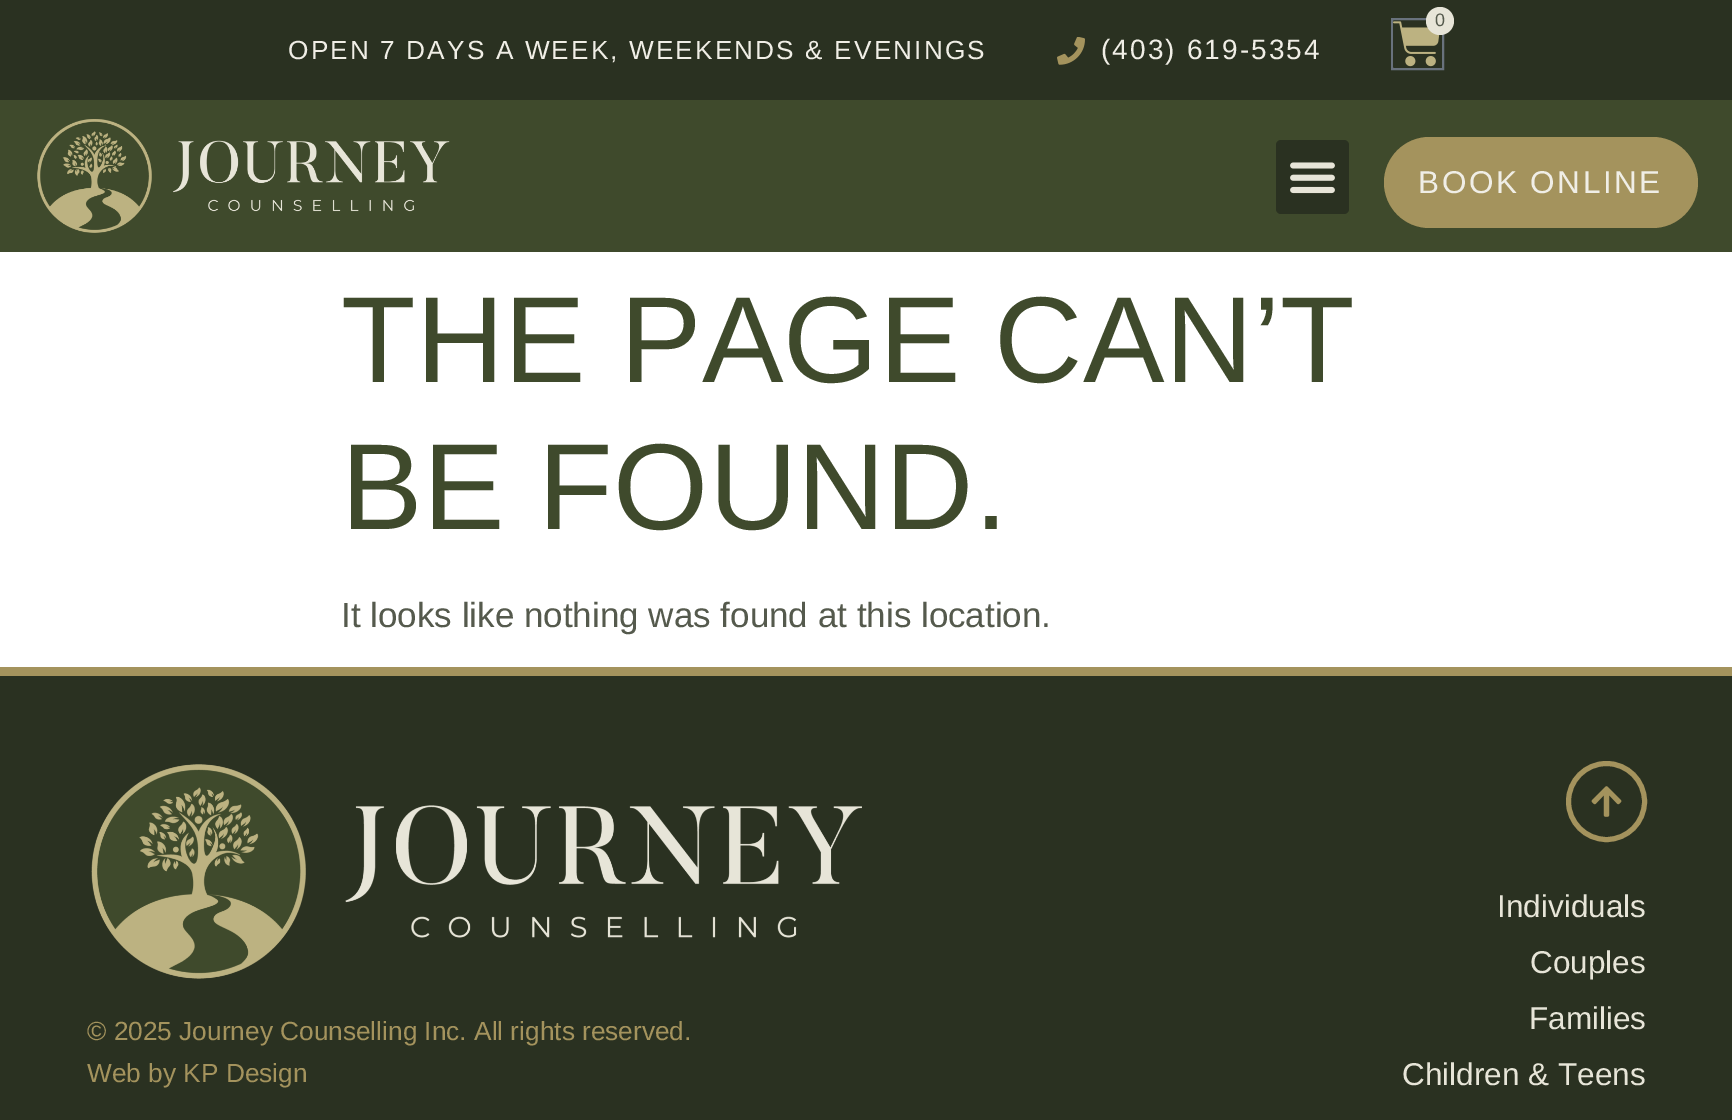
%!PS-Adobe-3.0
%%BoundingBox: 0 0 1732 1120
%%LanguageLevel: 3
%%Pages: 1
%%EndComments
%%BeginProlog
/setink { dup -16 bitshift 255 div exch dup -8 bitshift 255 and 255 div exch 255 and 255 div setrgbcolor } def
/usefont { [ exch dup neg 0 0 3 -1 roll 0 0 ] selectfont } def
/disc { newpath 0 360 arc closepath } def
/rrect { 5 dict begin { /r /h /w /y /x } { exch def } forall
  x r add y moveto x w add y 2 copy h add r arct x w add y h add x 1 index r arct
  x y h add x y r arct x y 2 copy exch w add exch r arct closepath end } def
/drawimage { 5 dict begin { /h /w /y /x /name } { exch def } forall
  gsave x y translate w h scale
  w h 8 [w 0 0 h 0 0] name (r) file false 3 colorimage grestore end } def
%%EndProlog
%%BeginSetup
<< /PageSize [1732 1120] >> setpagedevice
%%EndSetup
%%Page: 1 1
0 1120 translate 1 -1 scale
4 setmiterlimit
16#FFFFFF setink
0 0 1732 1120 rectfill
16#2A3121 setink
0 0 1732 100 rectfill
16#69727D setink
2 setlinewidth
1392 19 51 50 rectstroke
(img1.raw) 1393 21 47 46 drawimage
16#E7E5D8 setink
1440 21 14 disc fill
/LiberationSans-Regular 18 usefont
16#555A4D setink
1435 26 moveto 2.5 0 (0) ashow
/LiberationSans-Regular 26.25 usefont
16#F0EEE6 setink
288 59 moveto 2.1 0 (OPEN 7 DAYS A WEEK, WEEKENDS & EVENINGS) ashow
(img2.raw) 1057 37 28 28 drawimage
/LiberationSans-Regular 28 usefont
1101 59 moveto 2.1 0 (\(403\) 619-5354) ashow
16#3F4A2C setink
0 100 1732 152 rectfill
(img3.raw) 37 119 413 114 drawimage
16#2A3121 setink
1276 140 73 74 5 rrect fill
(img4.raw) 1290 162 45 32 drawimage
16#A4935D setink
1384 137 314 91 45.5 rrect fill
/LiberationSans-Regular 31.5 usefont
16#F0EEE6 setink
1418 193 moveto 2.5 0 (BOOK ONLINE) ashow
/LiberationSans-Regular 122.5 usefont
16#3F4A2C setink
341 382 moveto (THE PAGE CAN’T) show
341 529 moveto (BE FOUND.) show
/LiberationSans-Regular 35 usefont
16#555A4D setink
341 627 moveto (It looks like nothing was found at this location.) show
16#2A3121 setink
0 676 1732 444 rectfill
16#A4935D setink
0 667 1732 9 rectfill
(img5.raw) 91 764 771 215 drawimage
/LiberationSans-Regular 26.25 usefont
87 1040 moveto (© 2025 Journey Counselling Inc. All rights reserved.) show
87 1082 moveto (Web by KP Design) show
5 setlinewidth
1606.5 801.5 38 disc stroke
(img6.raw) 1591 786 31 31 drawimage
/LiberationSans-Regular 31.5 usefont
16#E7E5D8 setink
[
    [(Individuals) 1497 917]
    [(Couples) 1530 973]
    [(Families) 1529 1029]
    [(Children & Teens) 1402 1085]
] { aload pop moveto show } forall
showpage
%%EOF
